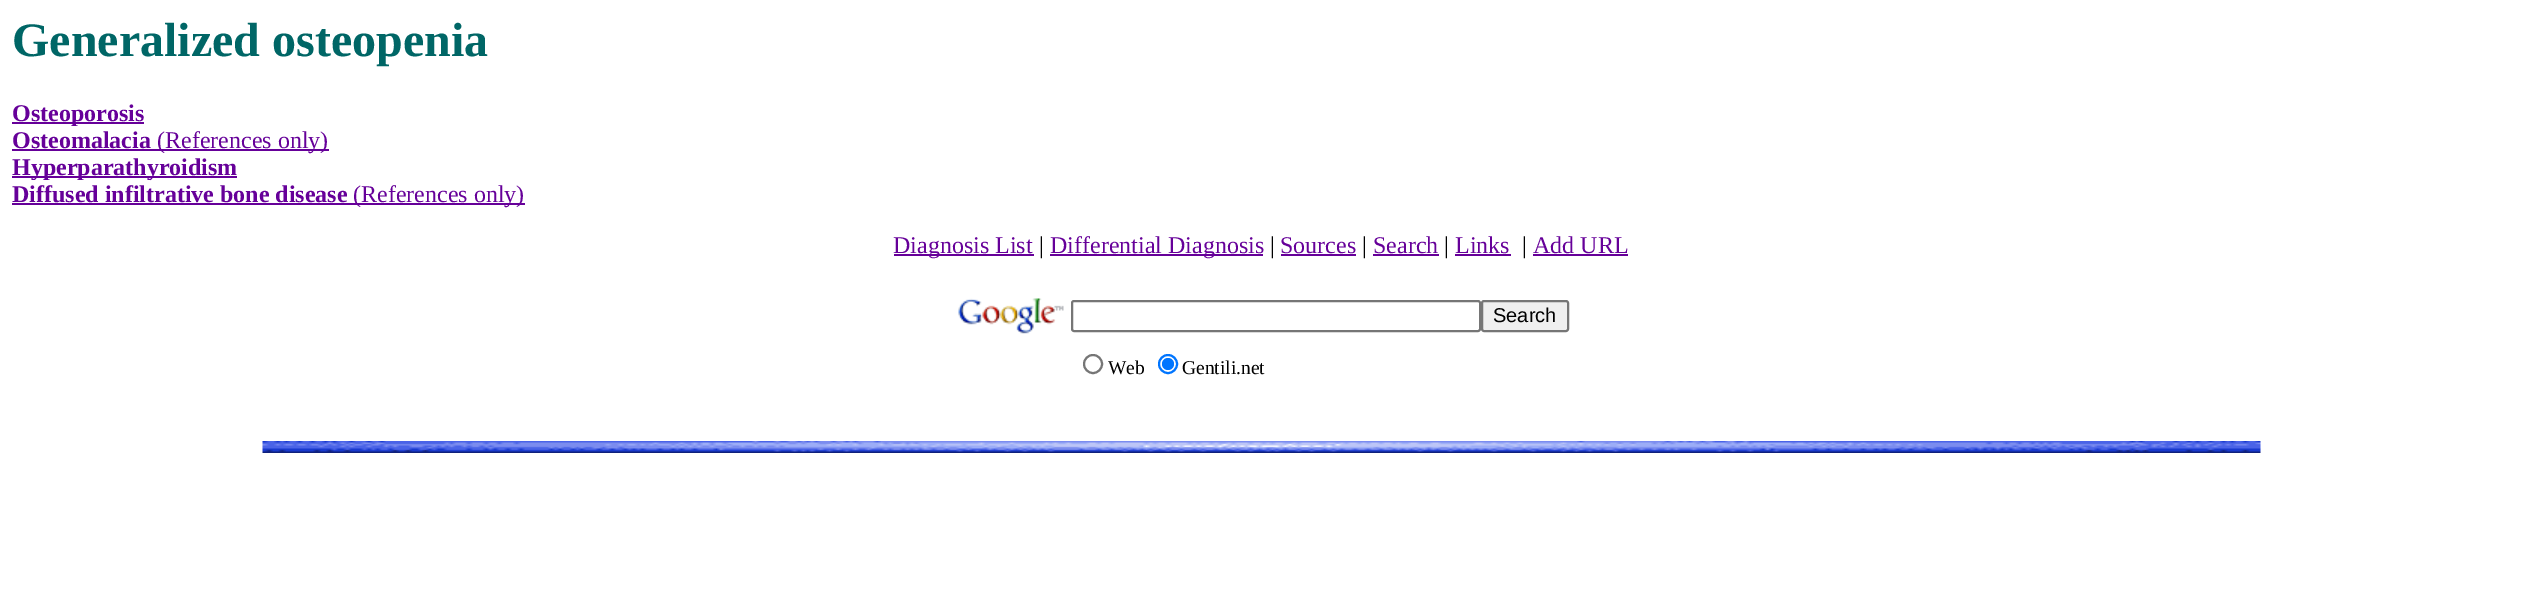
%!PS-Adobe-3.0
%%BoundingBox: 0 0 2521 615
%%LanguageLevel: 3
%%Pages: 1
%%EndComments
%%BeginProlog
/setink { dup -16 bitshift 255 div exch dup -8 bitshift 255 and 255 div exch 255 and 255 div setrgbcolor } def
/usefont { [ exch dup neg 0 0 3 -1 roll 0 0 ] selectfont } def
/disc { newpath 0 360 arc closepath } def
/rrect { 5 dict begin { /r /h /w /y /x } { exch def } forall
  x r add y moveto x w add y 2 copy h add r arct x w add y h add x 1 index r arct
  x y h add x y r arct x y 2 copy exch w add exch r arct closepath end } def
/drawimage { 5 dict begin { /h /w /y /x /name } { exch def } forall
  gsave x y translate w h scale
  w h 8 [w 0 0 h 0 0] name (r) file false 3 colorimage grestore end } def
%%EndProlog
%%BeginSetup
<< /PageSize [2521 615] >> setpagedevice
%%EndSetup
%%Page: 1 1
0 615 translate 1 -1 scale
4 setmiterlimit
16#FFFFFF setink
0 0 2521 615 rectfill
/LiberationSerif-Bold 48 usefont
16#006666 setink
12 56 moveto (Generalized osteopenia) show
16#660099 setink
12 122 132 2 rectfill
/LiberationSerif-Bold 24 usefont
12 121 moveto (Osteoporosis) show
12 148 moveto (Osteomalacia) show
16#FFFFFF setink
71 126 7 1 rectfill
16#660099 setink
12 149 317 2 rectfill
/LiberationSerif-Regular 24 usefont
157 148 moveto (\(References only\)) show
12 176 225 2 rectfill
/LiberationSerif-Bold 24 usefont
12 175 moveto (Hyperparathyroidism) show
12 202 moveto (Diffused infiltrative bone disease) show
16#FFFFFF setink
32 180 118 1 rectfill
16#660099 setink
12 203 513 2 rectfill
/LiberationSerif-Regular 24 usefont
353 202 moveto (\(References only\)) show
894 254 140 2 rectfill
893 253 moveto (Diagnosis List) show
16#000000 setink
1039 253 moveto (|) show
16#660099 setink
1050 254 213 2 rectfill
1050 253 moveto (Differential Diagnosis) show
16#000000 setink
1270 253 moveto (|) show
16#660099 setink
1280 253 moveto (Sources) show
1281 254 75 2 rectfill
16#000000 setink
1362 253 moveto (|) show
16#660099 setink
1373 253 moveto (Search) show
1373 254 66 2 rectfill
16#000000 setink
1444 253 moveto (|) show
16#660099 setink
1455 253 moveto (Links) show
1455 254 56 2 rectfill
16#000000 setink
1522 253 moveto (|) show
16#660099 setink
1533 253 moveto (Add URL) show
1533 254 95 2 rectfill
(img1.raw) 958 298 106 36 drawimage
16#767676 setink
2 setlinewidth
1072 301 408 30 2 rrect stroke
16#EFEFEF setink
1482 301 86 30 2 rrect gsave fill grestore
16#767676 setink
stroke
/LiberationSans-Regular 20 usefont
16#000000 setink
1493 322 moveto (Search) show
16#767676 setink
1093 364 9 disc stroke
/LiberationSerif-Regular 19.5 usefont
16#000000 setink
1108 374 moveto (Web) show
16#0075FF setink
1168 364 9 disc stroke
1168 364 6 disc fill
16#000000 setink
1182 374 moveto (Gentili.net) show
(img2.raw) 262 441 1999 12 drawimage
showpage
%%EOF
